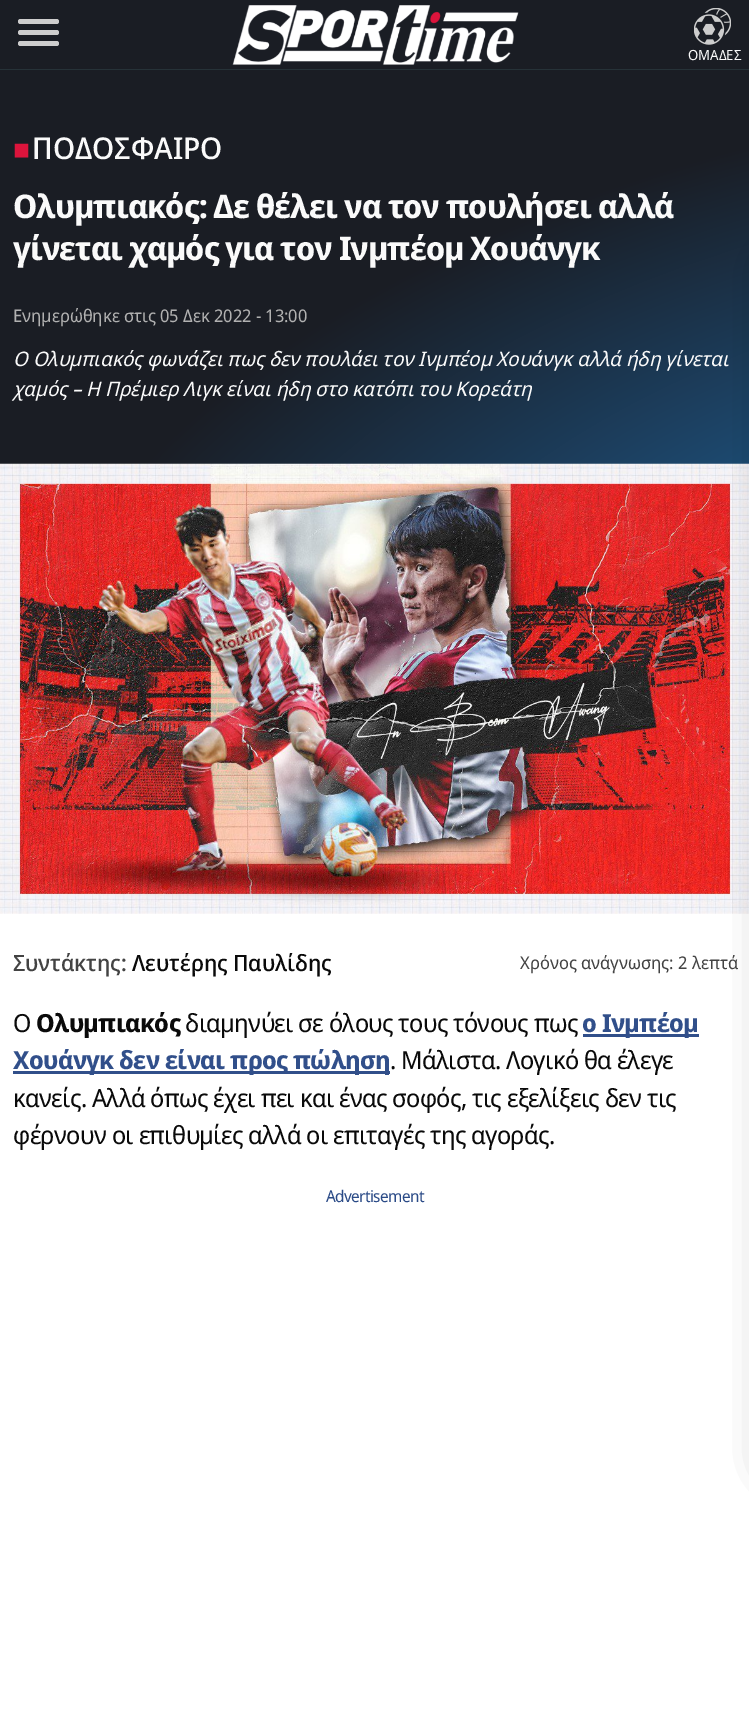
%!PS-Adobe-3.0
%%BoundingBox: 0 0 749 1728
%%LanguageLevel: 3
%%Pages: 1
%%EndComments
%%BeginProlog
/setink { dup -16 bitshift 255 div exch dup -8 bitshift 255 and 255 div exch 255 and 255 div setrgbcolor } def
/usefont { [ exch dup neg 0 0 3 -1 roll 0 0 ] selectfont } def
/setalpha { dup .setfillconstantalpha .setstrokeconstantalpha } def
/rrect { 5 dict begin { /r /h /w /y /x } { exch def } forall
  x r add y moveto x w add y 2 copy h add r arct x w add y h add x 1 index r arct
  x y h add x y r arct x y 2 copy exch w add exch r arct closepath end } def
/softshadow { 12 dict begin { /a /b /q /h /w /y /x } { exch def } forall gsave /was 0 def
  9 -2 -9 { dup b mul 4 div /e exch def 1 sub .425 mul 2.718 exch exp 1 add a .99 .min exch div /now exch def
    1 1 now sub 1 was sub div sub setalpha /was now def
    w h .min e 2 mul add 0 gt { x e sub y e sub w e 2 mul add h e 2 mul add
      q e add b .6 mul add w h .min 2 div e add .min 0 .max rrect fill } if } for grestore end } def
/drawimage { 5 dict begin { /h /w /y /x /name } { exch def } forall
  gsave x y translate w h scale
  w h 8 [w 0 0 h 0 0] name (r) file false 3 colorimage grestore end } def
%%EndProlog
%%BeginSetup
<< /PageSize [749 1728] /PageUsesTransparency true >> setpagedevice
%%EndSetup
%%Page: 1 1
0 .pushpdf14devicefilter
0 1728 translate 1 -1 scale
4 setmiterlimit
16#FFFFFF setink
0 0 749 1728 rectfill
16#1A1D24 setink
0 0 749 69 rectfill
16#263238 setink
0 69 749 1 rectfill
16#CDCDCD setink
18 19 41 5 2.5 rrect fill
18 30 41 5 2.5 rrect fill
18 41 41 5 2.5 rrect fill
(img1.raw) 232 5 287 60 drawimage
(img2.raw) 694 8 37 37 drawimage
/NotoSansDisplay-Regular 14 usefont
16#FAFAFA setink
688 60 moveto (ΟΜΑΔΕΣ) show
gsave 0 70 moveto 749 70 lineto 749 464 lineto 0 464 lineto closepath clip newpath 1350 779 translate 1350 709 scale
<< /ShadingType 3 /ColorSpace /DeviceRGB /Coords [0 0 0 0 0 1] /Extend [true true] /Function << /FunctionType 2 /Domain [0 1] /C0 [0.129 0.588 0.953] /C1 [0.102 0.114 0.141] /N 1 >> >> shfill grestore
(img3.raw) 0 463 749 451 drawimage
16#000000 setink
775 259 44 1211 22 19 0.6 softshadow
/LiberationSans-Regular 28 usefont
16#DC143C setink
13 159 moveto (■) show
/NotoSansDisplay-Medium 30 usefont
16#FAFAFA setink
32 159 moveto (ΠΟΔΟΣΦΑΙΡΟ) show
/NotoSansDisplay-Bold 32.5 usefont
13 218 moveto -0.95 0 (Ολυμπιακός: Δε θέλει να τον πουλήσει αλλά) ashow
13 260 moveto -0.95 0 (γίνεται χαμός για τον Ινμπέομ Χουάνγκ) ashow
/NotoSansDisplay-Regular 17.5 usefont
16#B1B1B1 setink
13 322 moveto (Ενημερώθηκε στις 05 Δεκ 2022 - 13:00) show
/NotoSansDisplay-Italic 20 usefont
16#FAFAFA setink
13 366 moveto (Ο Ολυμπιακός φωνάζει πως δεν πουλάει τον Ινμπέομ Χουάνγκ αλλά ήδη γίνεται) show
13 396 moveto (χαμός – Η Πρέμιερ Λιγκ είναι ήδη στο κατόπι του Κορεάτη) show
/NotoSansDisplay-Medium 22.5 usefont
16#434343 setink
13 971 moveto (Συντάκτης:) show
16#0A0A0A setink
132 971 moveto (Λευτέρης Παυλίδης) show
/NotoSansDisplay-Regular 17.5 usefont
16#434343 setink
520 969 moveto (Χρόνος ανάγνωσης: 2 λεπτά) show
/NotoSansDisplay-Regular 25 usefont
16#0A0A0A setink
13 1032 moveto -0.6 0 (Ο) ashow
/NotoSansDisplay-Bold 25 usefont
36 1032 moveto -0.6 0 (Ολυμπιακός) ashow
/NotoSansDisplay-Regular 25 usefont
185 1032 moveto -0.6 0 (διαμηνύει σε όλους τους τόνους πως) ashow
16#314F8A setink
583 1034 116 3 rectfill
/NotoSansDisplay-Bold 25 usefont
582 1032 moveto -0.6 0 (ο Ινμπέομ) ashow
13 1071 377 3 rectfill
13 1069 moveto -0.6 0 (Χουάνγκ δεν είναι προς πώληση) ashow
/NotoSansDisplay-Regular 25 usefont
16#0A0A0A setink
390 1069 moveto -0.6 0 (. Μάλιστα. Λογικό θα έλεγε) ashow
13 1107 moveto -0.6 0 (κανείς. Αλλά όπως έχει πει και ένας σοφός, τις εξελίξεις δεν τις) ashow
13 1144 moveto -0.6 0 (φέρνουν οι επιθυμίες αλλά οι επιταγές της αγοράς.) ashow
/NotoSansDisplay-Regular 16.25 usefont
16#2B4B87 setink
326 1202 moveto -0.6 0 (Advertisement) ashow
.poppdf14devicefilter showpage
%%EOF
